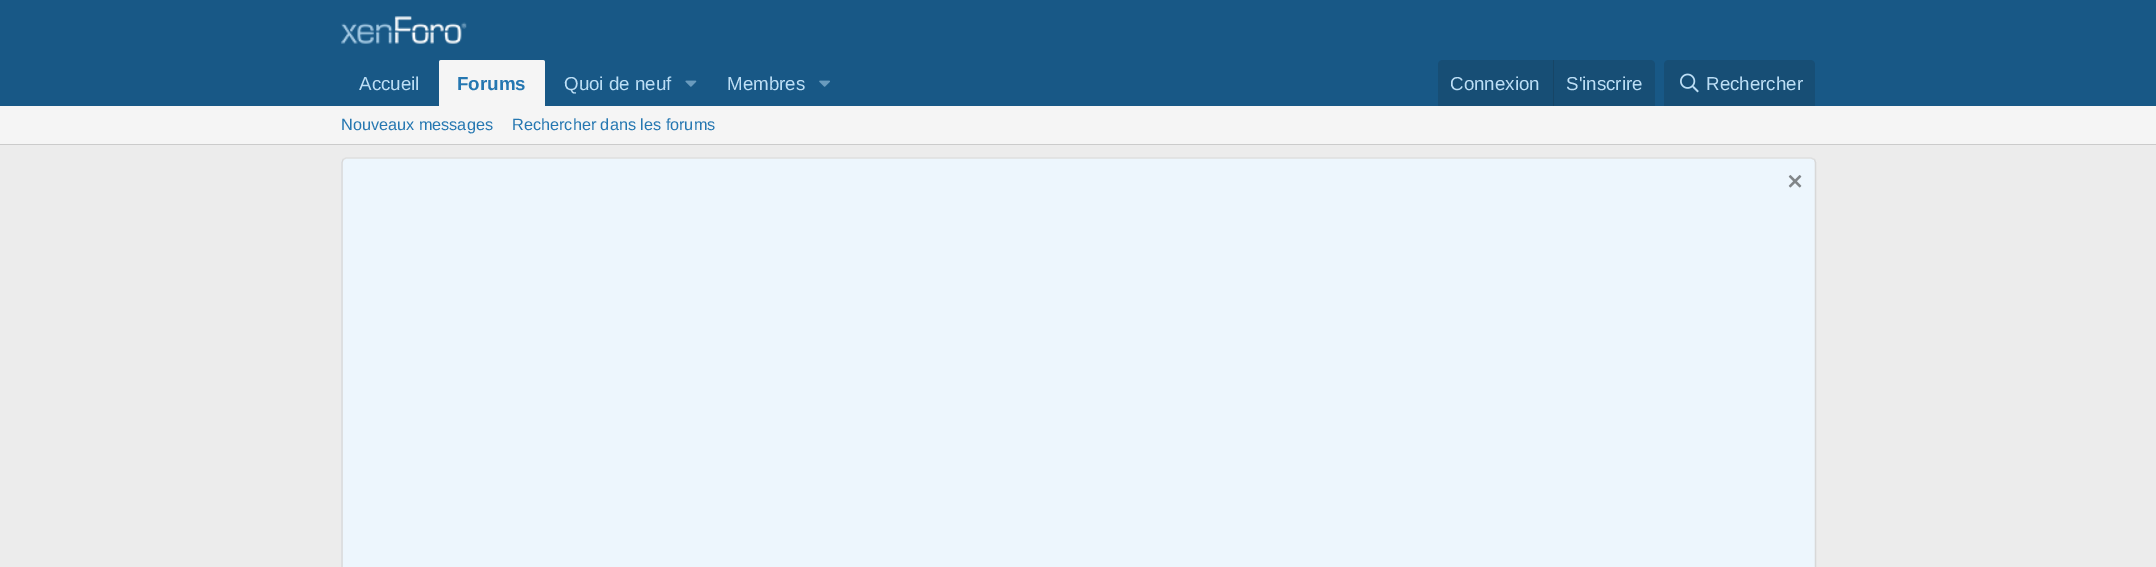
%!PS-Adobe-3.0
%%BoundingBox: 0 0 2156 567
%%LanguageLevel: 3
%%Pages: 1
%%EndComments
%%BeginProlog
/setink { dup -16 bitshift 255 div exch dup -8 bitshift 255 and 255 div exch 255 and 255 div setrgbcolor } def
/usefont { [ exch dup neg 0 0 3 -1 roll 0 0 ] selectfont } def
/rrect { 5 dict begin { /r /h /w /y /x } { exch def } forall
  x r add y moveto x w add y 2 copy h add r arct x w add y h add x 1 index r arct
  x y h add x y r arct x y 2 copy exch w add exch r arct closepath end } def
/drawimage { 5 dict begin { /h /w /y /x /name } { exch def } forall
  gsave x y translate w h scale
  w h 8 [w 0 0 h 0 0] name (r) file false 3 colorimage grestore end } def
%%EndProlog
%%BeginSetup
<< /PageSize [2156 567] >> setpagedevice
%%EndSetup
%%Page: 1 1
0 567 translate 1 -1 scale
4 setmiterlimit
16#ECECEC setink
0 0 2156 567 rectfill
16#185886 setink
0 0 2156 106 rectfill
(img1.raw) 341 16 126 28 drawimage
/LiberationSans-Regular 18.75 usefont
16#BCDEF5 setink
359 90 moveto (Accueil) show
16#F5F5F5 setink
441.5 60 moveto 542.5 60 lineto 544 60 545 61 545 62.5 curveto 545 106 lineto 439 106 lineto 439 62.5 lineto 439 61 440 60 441.5 60 curveto closepath fill
/LiberationSans-Bold 18.75 usefont
16#2577B1 setink
457 90 moveto (Forums) show
/LiberationSans-Regular 18.75 usefont
16#BCDEF5 setink
564 90 moveto (Quoi de neuf) show
(img2.raw) 685 80 12 7 drawimage
727 90 moveto (Membres) show
(img3.raw) 819 80 11 7 drawimage
16#174E75 setink
1443 60 moveto 1650 60 lineto 1653 60 1655 62 1655 65 curveto 1655 106 lineto 1438 106 lineto 1438 65 lineto 1438 62 1440 60 1443 60 curveto closepath fill
16#BCDEF5 setink
1450 90 moveto (Connexion) show
16#174566 setink
1553 60 1 46 rectfill
16#BCDEF5 setink
1566 90 moveto (S'inscrire) show
16#174E75 setink
1669 60 moveto 1810 60 lineto 1813 60 1815 62 1815 65 curveto 1815 106 lineto 1664 106 lineto 1664 65 lineto 1664 62 1666 60 1669 60 curveto closepath fill
(img4.raw) 1680 73 19 20 drawimage
16#BCDEF5 setink
1706 90 moveto (Rechercher) show
16#F5F5F5 setink
0 106 2156 38 rectfill
16#CBCBCB setink
0 144 2156 1 rectfill
/LiberationSans-Regular 16.25 usefont
16#2577B1 setink
341 130 moveto (Nouveaux messages) show
512 130 moveto (Rechercher dans les forums) show
16#EDF6FD setink
341 158 1475 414 5 rrect fill
16#DFDFDF setink
1.2 setlinewidth
343 159.5 moveto 346 158 lineto 1811 158 lineto 1814.5 159.5 lineto stroke
16#D8D8D8 setink
1814.5 159.5 moveto 1815.5 162.5 lineto 1815.5 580 lineto 1814.5 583 lineto stroke
343 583 moveto 342 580 lineto 342 162.5 lineto 343 159.5 lineto stroke
(img5.raw) 1788 175 14 13 drawimage
showpage
%%EOF
